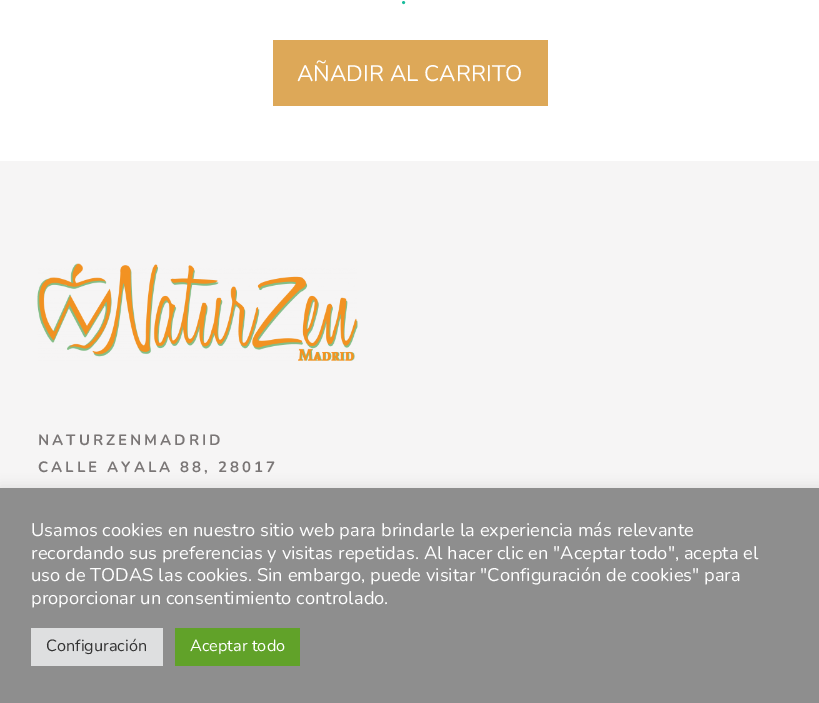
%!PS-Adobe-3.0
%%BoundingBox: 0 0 819 703
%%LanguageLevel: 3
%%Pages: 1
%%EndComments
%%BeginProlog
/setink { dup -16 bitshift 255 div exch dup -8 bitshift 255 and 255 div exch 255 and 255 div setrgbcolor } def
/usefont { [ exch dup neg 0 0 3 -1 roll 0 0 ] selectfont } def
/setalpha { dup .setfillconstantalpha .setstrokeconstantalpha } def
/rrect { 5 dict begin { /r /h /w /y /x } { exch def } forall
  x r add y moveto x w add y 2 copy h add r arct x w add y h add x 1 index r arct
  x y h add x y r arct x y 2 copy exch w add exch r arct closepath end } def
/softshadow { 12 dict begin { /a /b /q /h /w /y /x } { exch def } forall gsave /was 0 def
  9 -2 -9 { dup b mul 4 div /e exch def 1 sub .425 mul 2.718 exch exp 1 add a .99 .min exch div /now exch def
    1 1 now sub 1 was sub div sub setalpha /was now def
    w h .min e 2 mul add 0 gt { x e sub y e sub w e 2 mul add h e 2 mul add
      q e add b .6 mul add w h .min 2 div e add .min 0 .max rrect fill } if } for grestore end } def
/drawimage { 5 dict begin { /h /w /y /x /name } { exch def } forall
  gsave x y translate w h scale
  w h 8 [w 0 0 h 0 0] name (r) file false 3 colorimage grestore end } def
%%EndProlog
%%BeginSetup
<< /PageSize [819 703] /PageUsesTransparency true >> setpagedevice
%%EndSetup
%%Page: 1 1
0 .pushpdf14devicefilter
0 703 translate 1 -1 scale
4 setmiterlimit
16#FFFFFF setink
0 0 819 703 rectfill
/Nunito-Bold 21 usefont
16#1ABC9C setink
401 4 moveto (.) show
16#DDA858 setink
273 40 275 66 rectfill
/Nunito-Regular 22.5 usefont
16#FFFFFF setink
297 81 moveto (AÑADIR AL CARRITO) show
16#F6F5F5 setink
0 161 819 327 rectfill
(img1.raw) 37 263 321 98 drawimage
/Nunito-Bold 15 usefont
16#7A7676 setink
38 445 moveto 3 0 (NATURZENMADRID) ashow
38 472 moveto 3 0 (CALLE AYALA 88, 28017) ashow
16#ACABAB setink
0 486 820 217 0 6 0.3 softshadow
16#8E8E8E setink
0 488 819 215 rectfill
/Nunito-Regular 18.35 usefont
16#FFFFFF setink
[
    [(Usamos cookies en nuestro sitio web para brindarle la experiencia más relevante) 31 536]
    [(recordando sus preferencias y visitas repetidas. Al hacer clic en "Aceptar todo", acepta el) 31 559]
    [(uso de TODAS las cookies. Sin embargo, puede visitar "Configuración de cookies" para) 31 581]
    [(proporcionar un consentimiento controlado.) 31 604]
] { aload pop moveto show } forall
16#DEDFE0 setink
31 628 132 38 rectfill
/Nunito-Regular 16.25 usefont
16#333333 setink
46 651 moveto (Configuración) show
16#61A229 setink
175 628 125 38 rectfill
16#FFFFFF setink
190 651 moveto (Aceptar todo) show
.poppdf14devicefilter showpage
%%EOF
